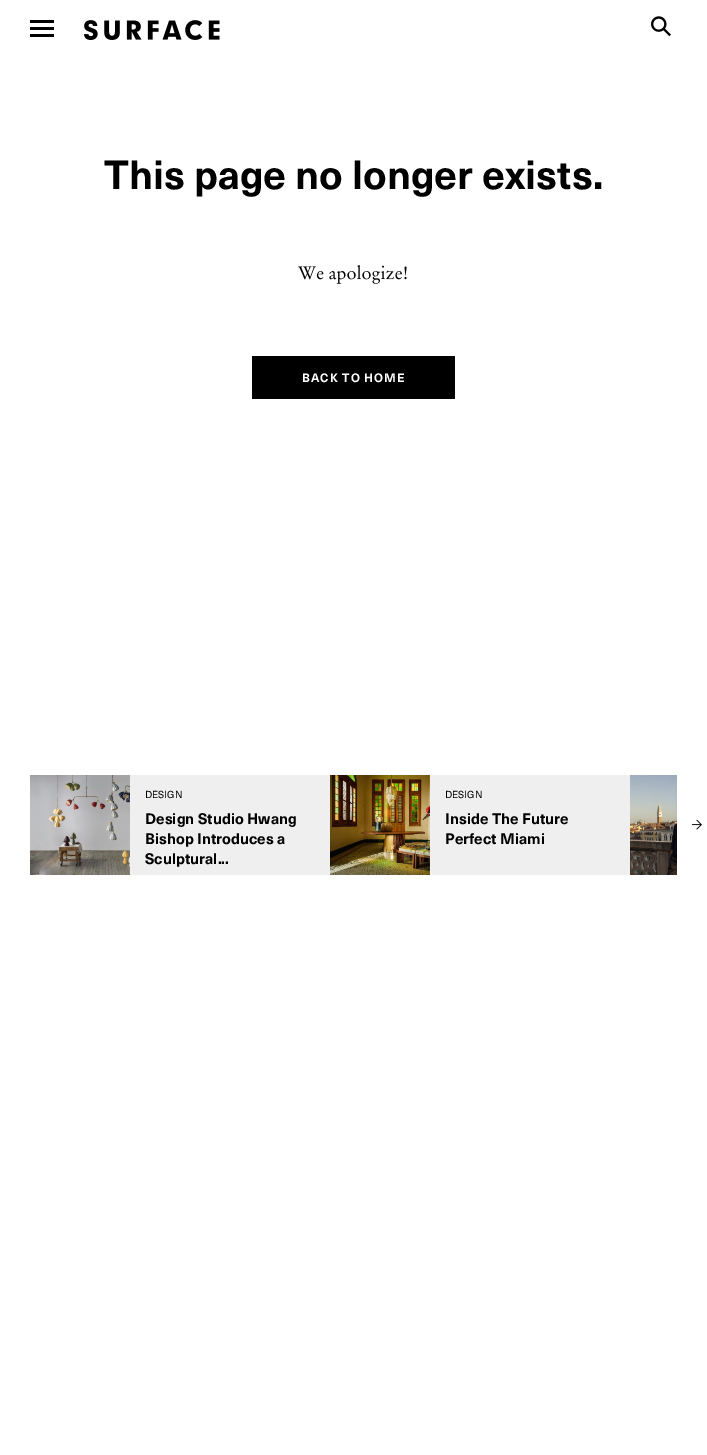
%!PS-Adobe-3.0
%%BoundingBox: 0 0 707 1455
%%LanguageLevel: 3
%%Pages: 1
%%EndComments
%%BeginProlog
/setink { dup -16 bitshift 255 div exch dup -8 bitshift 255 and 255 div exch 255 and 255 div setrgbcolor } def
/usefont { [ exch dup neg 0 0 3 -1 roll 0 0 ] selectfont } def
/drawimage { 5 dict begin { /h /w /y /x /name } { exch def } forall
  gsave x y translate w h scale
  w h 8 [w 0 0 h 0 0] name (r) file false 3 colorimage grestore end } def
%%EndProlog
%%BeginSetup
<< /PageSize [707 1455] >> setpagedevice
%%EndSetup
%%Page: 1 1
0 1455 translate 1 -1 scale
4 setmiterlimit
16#FFFFFF setink
0 0 707 1455 rectfill
[
    [30 20 24 3 16#000000]
    [30 27 24 3 16#000000]
    [30 34 24 3 16#000000]
] { aload pop setink rectfill } forall
(img1.raw) 84 20 136 20 drawimage
(img2.raw) 651 16 20 21 drawimage
/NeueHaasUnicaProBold-Regular 40 usefont
104 189 moveto (This page no longer exists.) show
(img3.raw) 298 265 109 19 drawimage
252 356 203 43 rectfill
/NeueHaasUnicaProBold-Regular 12 usefont
16#FFFFFF setink
302 382 moveto 1 0 (BACK TO HOME) ashow
16#EFEFEF setink
130 775 200 100 rectfill
(img4.raw) 30 775 100 100 drawimage
/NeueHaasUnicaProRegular-Regular 10 usefont
16#000000 setink
145 798 moveto (DESIGN) show
/NeueHaasUnicaProBold-Regular 15 usefont
[
    [(Design Studio Hwang) 145 824]
    [(Bishop Introduces a) 145 844]
    [(Sculptural...) 145 864]
] { aload pop moveto show } forall
16#EFEFEF setink
430 775 200 100 rectfill
(img5.raw) 330 775 100 100 drawimage
/NeueHaasUnicaProRegular-Regular 10 usefont
16#000000 setink
445 798 moveto (DESIGN) show
/NeueHaasUnicaProBold-Regular 15 usefont
445 824 moveto (Inside The Future) show
445 844 moveto (Perfect Miami) show
(img6.raw) 630 775 47 100 drawimage
(img7.raw) 692 819 10 11 drawimage
showpage
%%EOF
